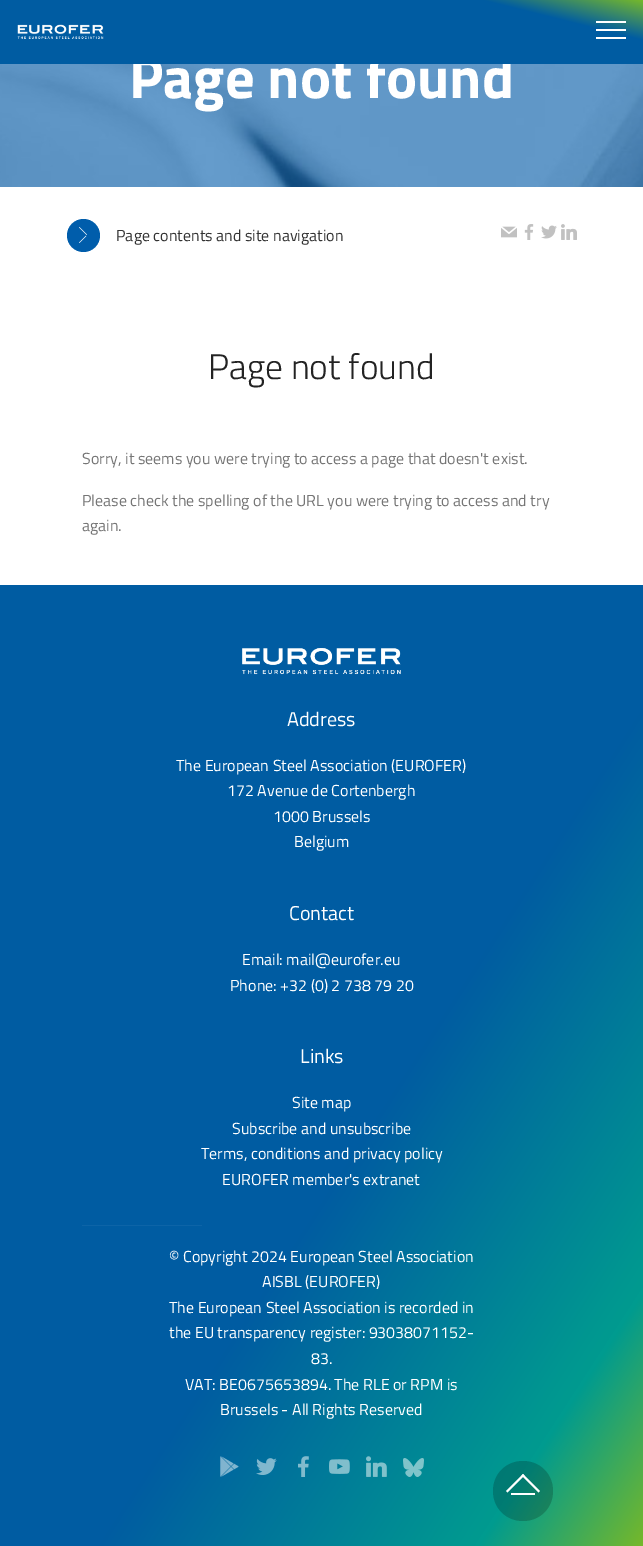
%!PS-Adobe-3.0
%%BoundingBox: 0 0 643 1546
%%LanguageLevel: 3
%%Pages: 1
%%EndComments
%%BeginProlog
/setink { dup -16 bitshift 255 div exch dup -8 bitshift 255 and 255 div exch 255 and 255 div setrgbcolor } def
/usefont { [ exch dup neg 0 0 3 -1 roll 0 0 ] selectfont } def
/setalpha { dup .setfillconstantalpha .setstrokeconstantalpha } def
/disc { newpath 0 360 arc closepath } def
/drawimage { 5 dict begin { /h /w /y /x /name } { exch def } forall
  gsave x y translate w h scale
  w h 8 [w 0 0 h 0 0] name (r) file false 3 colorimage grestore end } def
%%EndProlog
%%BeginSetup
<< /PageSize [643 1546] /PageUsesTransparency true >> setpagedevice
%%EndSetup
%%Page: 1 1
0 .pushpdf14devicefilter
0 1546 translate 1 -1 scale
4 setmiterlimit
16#FFFFFF setink
0 0 643 1546 rectfill
(img2.raw) 0 64 643 123 drawimage
/TitilliumWeb-Bold 58.5 usefont
129 98 moveto (Page not found) show
gsave 0 0 moveto 643 0 lineto 643 64 lineto 0 64 lineto closepath clip newpath
<< /ShadingType 2 /ColorSpace /DeviceRGB /Coords [295 138 348 -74] /Extend [true true] /Function << /FunctionType 3 /Domain [0 1] /Functions [<< /FunctionType 2 /Domain [0 1] /C0 [0 0.361 0.635] /C1 [0 0.361 0.635] /N 1 >> << /FunctionType 2 /Domain [0 1] /C0 [0 0.361 0.635] /C1 [0.463 0.722 0.165] /N 1 >>] /Bounds [0.82] /Encode [0 1 0 1] >> >> shfill grestore
(img1.raw) 17 24 87 15 drawimage
[
    [596 21 30 2 16#FFFFFF]
    [596 29 30 2 16#FFFFFF]
    [596 37 30 2 16#FFFFFF]
] { aload pop setink rectfill } forall
16#005DAB setink
83.5 235.5 16.5 disc fill
(img3.raw) 79 227 8 16 drawimage
/TitilliumWeb-Regular 16 usefont
16#333333 setink
116 241 moveto (Page contents and site navigation) show
(img4.raw) 501 226 16 12 drawimage
(img5.raw) 524 224 10 16 drawimage
(img6.raw) 541 225 16 14 drawimage
(img7.raw) 561 224 16 16 drawimage
/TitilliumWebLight-Light 35.5 usefont
16#232323 setink
208 379 moveto (Page not found) show
/TitilliumWeb-Regular 16 usefont
16#767676 setink
[
    [(Sorry, it seems you were trying to access a page that doesn't exist.) 82 464]
    [(Please check the spelling of the URL you were trying to access and try) 82 506]
    [(again.) 82 531]
] { aload pop moveto show } forall
gsave 0 585 moveto 643 585 lineto 643 1546 lineto 0 1546 lineto closepath clip newpath
<< /ShadingType 2 /ColorSpace /DeviceRGB /Coords [-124 776 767 1355] /Extend [true true] /Function << /FunctionType 3 /Domain [0 1] /Functions [<< /FunctionType 2 /Domain [0 1] /C0 [0 0.361 0.635] /C1 [0 0.361 0.635] /N 1 >> << /FunctionType 2 /Domain [0 1] /C0 [0 0.361 0.635] /C1 [0 0.608 0.561] /N 1 >> << /FunctionType 2 /Domain [0 1] /C0 [0 0.608 0.561] /C1 [0.463 0.722 0.165] /N 1 >>] /Bounds [0.57 0.87] /Encode [0 1 0 1 0 1] >> >> shfill grestore
(img8.raw) 242 648 159 27 drawimage
/TitilliumWeb-Regular 20 usefont
16#FFFFFF setink
287 726 moveto (Address) show
/TitilliumWeb-Regular 16 usefont
[
    [(The European Steel Association \(EUROFER\)) 176 771]
    [(172 Avenue de Cortenbergh) 227 796]
    [(1000 Brussels) 273 822]
    [(Belgium) 294 847]
] { aload pop moveto show } forall
/TitilliumWeb-Regular 20 usefont
289 920 moveto (Contact) show
/TitilliumWeb-Regular 16 usefont
242 965 moveto (Email: mail@eurofer.eu) show
230 991 moveto (Phone: +32 \(0\) 2 738 79 20) show
/TitilliumWeb-Regular 20 usefont
300 1063 moveto (Links) show
/TitilliumWeb-Regular 16 usefont
[
    [(Site map) 292 1108]
    [(Subscribe and unsubscribe) 232 1134]
    [(Terms, conditions and privacy policy) 201 1159]
    [(EUROFER member's extranet) 222 1185]
] { aload pop moveto show } forall
16#0D64A7 setink
82 1225 120 1 rectfill
16#FFFFFF setink
[
    [(© Copyright 2024 European Steel Association) 169 1262]
    [(AISBL \(EUROFER\)) 262 1287]
    [(The European Steel Association is recorded in) 169 1313]
    [(the EU transparency register: 93038071152-) 169 1338]
    [(83.) 311 1364]
    [(VAT: BE0675653894. The RLE or RPM is) 185 1390]
    [(Brussels - All Rights Reserved) 220 1415]
] { aload pop moveto show } forall
(img9.raw) 220 1456 19 21 drawimage
(img10.raw) 256 1458 21 17 drawimage
(img11.raw) 298 1456 11 21 drawimage
(img12.raw) 329 1459 21 15 drawimage
(img13.raw) 366 1456 21 21 drawimage
(img14.raw) 403 1458 21 19 drawimage
0.2 setalpha
16#000000 setink
523 1521 moveto 506 1521 493 1508 493 1491 curveto 493 1474 506 1461 523 1461 curveto 540 1461 553 1474 553 1491 curveto 553 1508 540 1521 523 1521 curveto closepath fill
1 setalpha
16#FFFFFF setink
506 1491 moveto 523 1474 lineto 524.5 1475.5 lineto 507.5 1492.5 lineto closepath fill
521.5 1475.5 moveto 523 1474 lineto 540 1491 lineto 538.5 1492.5 lineto closepath fill
511 1493 24 2 rectfill
.poppdf14devicefilter showpage
%%EOF
